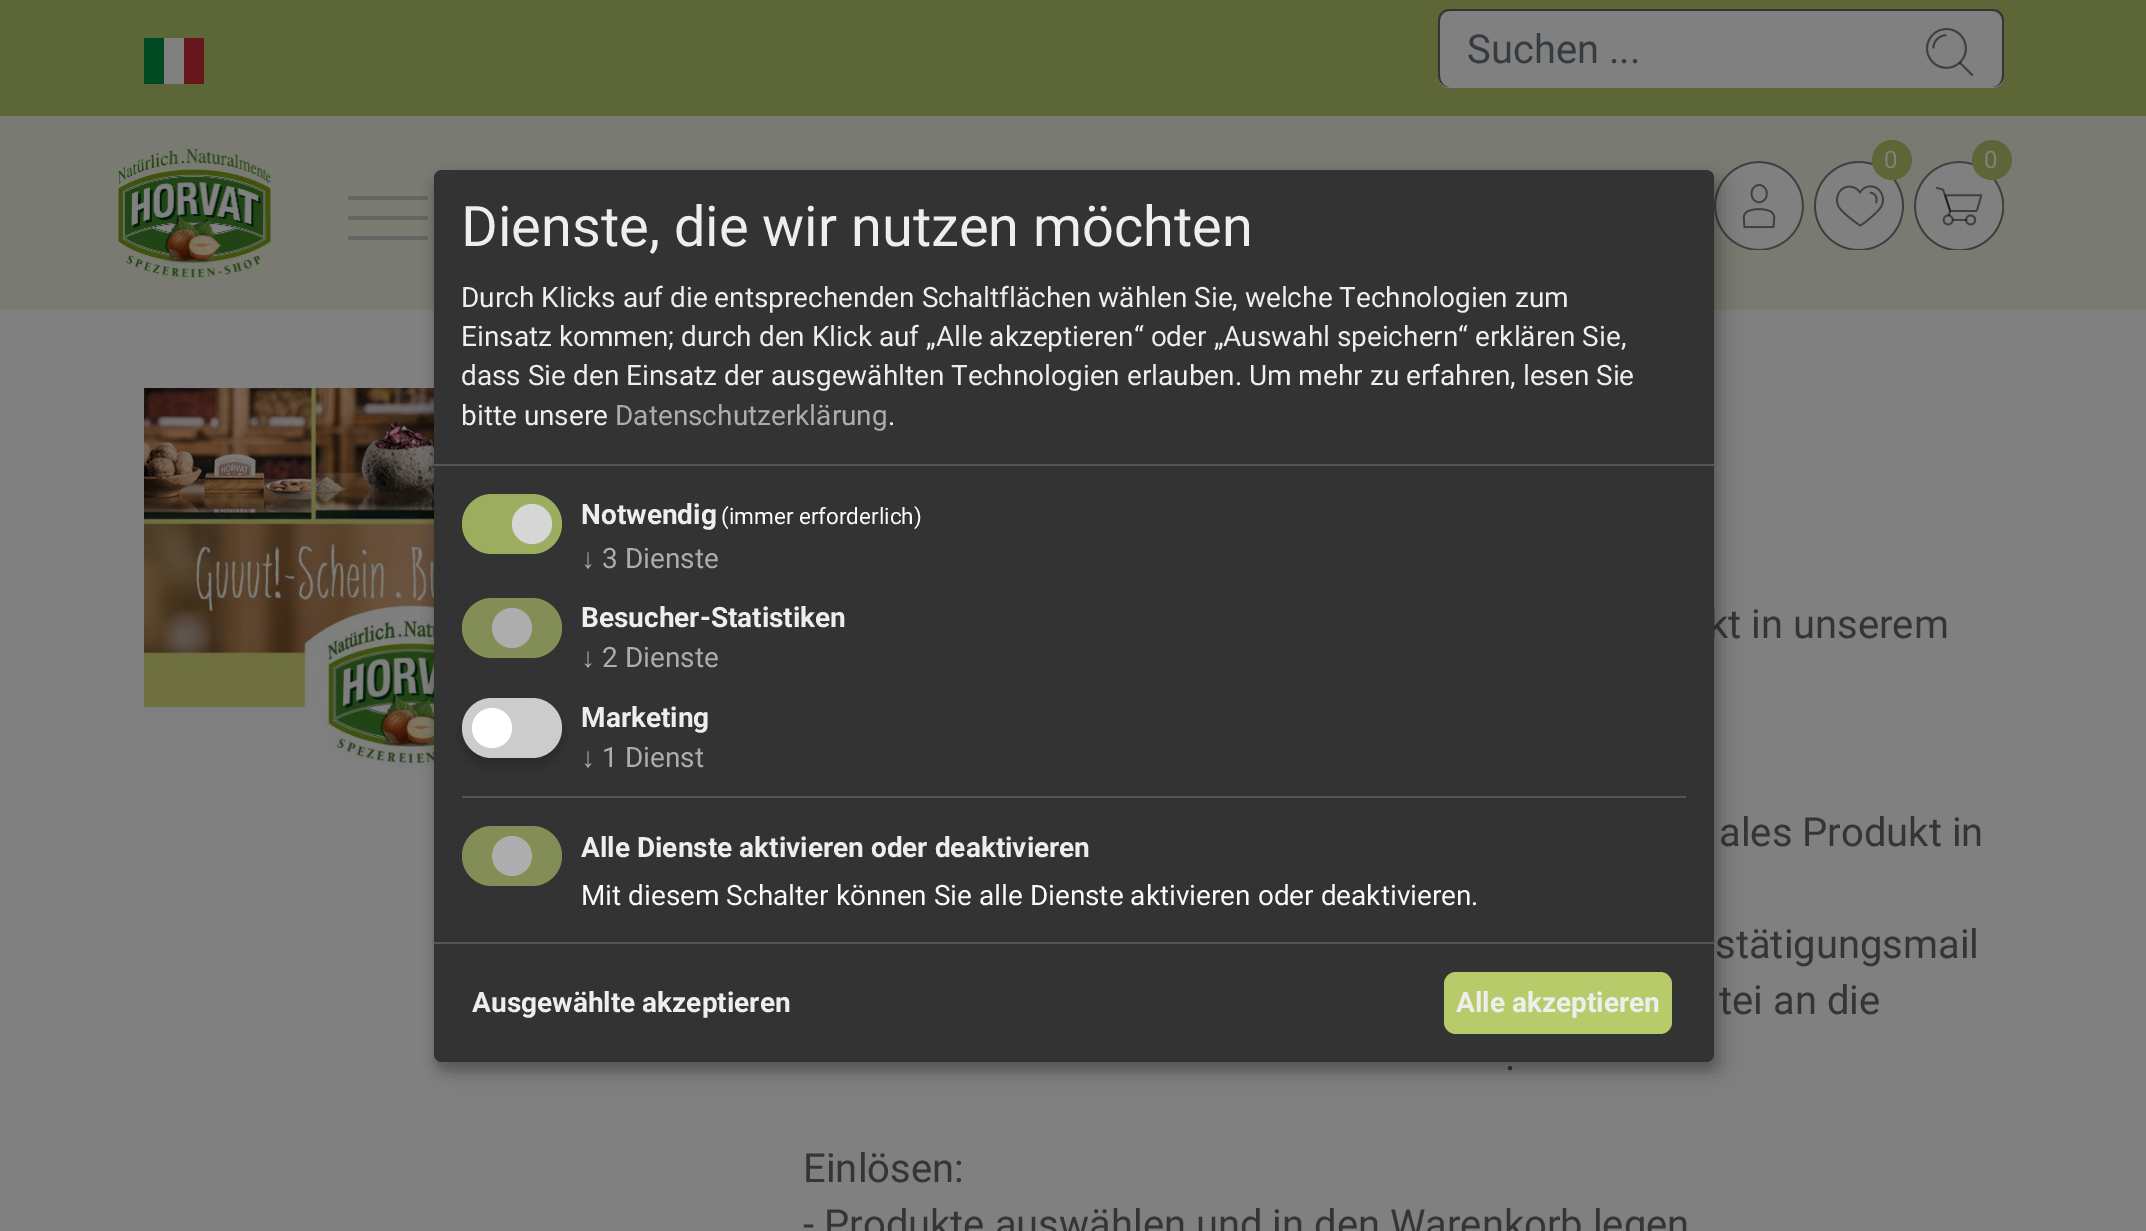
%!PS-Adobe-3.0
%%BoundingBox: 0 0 2146 1231
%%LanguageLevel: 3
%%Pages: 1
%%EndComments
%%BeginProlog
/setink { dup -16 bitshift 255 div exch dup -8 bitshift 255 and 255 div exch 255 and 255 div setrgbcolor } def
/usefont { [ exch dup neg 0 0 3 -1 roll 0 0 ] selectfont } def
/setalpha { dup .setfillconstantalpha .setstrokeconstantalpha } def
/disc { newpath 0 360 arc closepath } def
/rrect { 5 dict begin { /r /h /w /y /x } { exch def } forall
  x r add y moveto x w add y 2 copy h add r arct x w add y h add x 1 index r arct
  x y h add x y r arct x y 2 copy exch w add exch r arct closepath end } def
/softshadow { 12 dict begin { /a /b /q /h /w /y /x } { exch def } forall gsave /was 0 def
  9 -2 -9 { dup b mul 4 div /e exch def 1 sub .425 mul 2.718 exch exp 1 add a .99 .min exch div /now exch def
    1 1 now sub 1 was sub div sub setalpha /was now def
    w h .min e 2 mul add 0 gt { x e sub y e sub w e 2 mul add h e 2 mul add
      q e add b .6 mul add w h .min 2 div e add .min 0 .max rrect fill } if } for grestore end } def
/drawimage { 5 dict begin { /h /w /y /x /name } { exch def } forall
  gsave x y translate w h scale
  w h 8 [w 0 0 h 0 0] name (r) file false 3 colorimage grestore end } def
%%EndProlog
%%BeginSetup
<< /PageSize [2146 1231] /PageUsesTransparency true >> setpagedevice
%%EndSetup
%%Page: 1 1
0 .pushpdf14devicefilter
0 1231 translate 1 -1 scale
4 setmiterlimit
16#808080 setink
0 0 2146 1231 rectfill
[
    [0 116 2146 194 16#797B72]
    [0 0 2146 116 16#5C6636]
    [144 38 20 46 16#004923]
    [164 38 20 46 16#808080]
    [184 38 20 46 16#67161C]
] { aload pop setink rectfill } forall
16#808080 setink
1438 10 566 78 12 rrect fill
16#353535 setink
1450 9 moveto 1992 9 lineto 1999 9 2004 14 2004 21 curveto 2004 75 lineto 2004 82 1999 87 1992 87 curveto 1450 87 lineto 1443 87 1438 82 1438 75 curveto 1438 21 lineto 1438 14 1443 9 1450 9 curveto closepath 1450 11 moveto 1992 11 lineto 1998 11 2002 15 2002 21 curveto 2002 75 lineto 2002 82 1998 87 1992 87 curveto 1450 87 lineto 1444 87 1440 82 1440 75 curveto 1440 21 lineto 1440 15 1444 11 1450 11 curveto closepath eofill
/Roboto-Regular 40 usefont
16#363B3F setink
1467 63 moveto (Suchen ...) show
(img1.raw) 1926 28 47 48 drawimage
(img2.raw) 118 149 154 129 drawimage
16#656565 setink
348 196 80 4 2 rrect fill
348 216 80 4 2 rrect fill
348 236 80 4 2 rrect fill
(img3.raw) 1714 161 90 89 drawimage
(img4.raw) 1814 161 90 89 drawimage
16#5C6636 setink
1892 160 20 disc fill
/Roboto-Regular 24 usefont
16#808080 setink
1884 168 moveto (0) show
(img5.raw) 1914 161 90 89 drawimage
16#5C6636 setink
1992 160 20 disc fill
16#808080 setink
1984 168 moveto (0) show
(img6.raw) 144 388 290 381 drawimage
/Roboto-Regular 40 usefont
16#353535 setink
[
    [(kt in unserem) 1708 638]
    [(ales Produkt in) 1719 846]
    [(stätigungsmail) 1715 958]
    [(tei an die) 1719 1014]
    [(.) 1505 1070]
    [(Einlösen:) 803 1182]
    [(- Produkte auswählen und in den Warenkorb legen) 803 1238]
] { aload pop moveto show } forall
16#000000 setink
444 180 1280 892 8 10 0.19 softshadow
434 178 1280 892 8 6 0.2 softshadow
16#333333 setink
434 170 1280 892 8 rrect fill
16#555555 setink
434 464 1280 2 rectfill
/Roboto-Regular 56 usefont
16#EEEEEE setink
461 246 moveto (Dienste, die wir nutzen möchten) show
/Roboto-Regular 28 usefont
[
    [(Durch Klicks auf die entsprechenden Schaltflächen wählen Sie, welche Technologien zum) 461 307]
    [(Einsatz kommen; durch den Klick auf „Alle akzeptieren“ oder „Auswahl speichern“ erklären Sie,) 461 346]
    [(dass Sie den Einsatz der ausgewählten Technologien erlauben. Um mehr zu erfahren, lesen Sie) 461 385]
    [(bitte unsere) 461 425]
] { aload pop moveto show } forall
16#ADADAD setink
615 425 moveto (Datenschutzerklärung) show
16#EEEEEE setink
888 425 moveto (.) show
16#9DAD60 setink
462 494 100 60 30 rrect fill
16#D6D6D6 setink
532 524 20 disc fill
/Roboto-Bold 28 usefont
16#EEEEEE setink
581 524 moveto (Notwendig) show
/Roboto-Regular 22.5 usefont
16#FAFAFA setink
721 524 moveto (\(immer erforderlich\)) show
/LiberationSans-Regular 28 usefont
16#ADADAD setink
581 568 moveto (↓) show
/Roboto-Regular 28 usefont
602 568 moveto (3 Dienste) show
16#828E55 setink
462 598 100 60 30 rrect fill
16#ADADAD setink
512 628 20 disc fill
/Roboto-Bold 28 usefont
16#EEEEEE setink
581 627 moveto (Besucher-Statistiken) show
/LiberationSans-Regular 28 usefont
16#ADADAD setink
581 667 moveto (↓) show
/Roboto-Regular 28 usefont
602 667 moveto (2 Dienste) show
16#000000 setink
462 706 100 60 30 6 0.2 softshadow
16#CCCCCC setink
462 698 100 60 30 rrect fill
16#FFFFFF setink
492 728 20 disc fill
/Roboto-Bold 28 usefont
16#EEEEEE setink
581 727 moveto (Marketing) show
/LiberationSans-Regular 28 usefont
16#ADADAD setink
581 767 moveto (↓) show
/Roboto-Regular 28 usefont
602 767 moveto (1 Dienst) show
16#555555 setink
462 796 1224 2 rectfill
16#828E55 setink
462 826 100 60 30 rrect fill
16#ADADAD setink
512 856 20 disc fill
/Roboto-Bold 28 usefont
16#EEEEEE setink
581 857 moveto (Alle Dienste aktivieren oder deaktivieren) show
/Roboto-Regular 28 usefont
16#FAFAFA setink
581 905 moveto (Mit diesem Schalter können Sie alle Dienste aktivieren oder deaktivieren.) show
16#555555 setink
434 942 1280 2 rectfill
/Roboto-Bold 28 usefont
16#EEEEEE setink
472 1012 moveto (Ausgewählte akzeptieren) show
16#B7CB6B setink
1444 972 228 62 12 rrect fill
16#EEEEEE setink
1456 1012 moveto (Alle akzeptieren) show
.poppdf14devicefilter showpage
%%EOF
